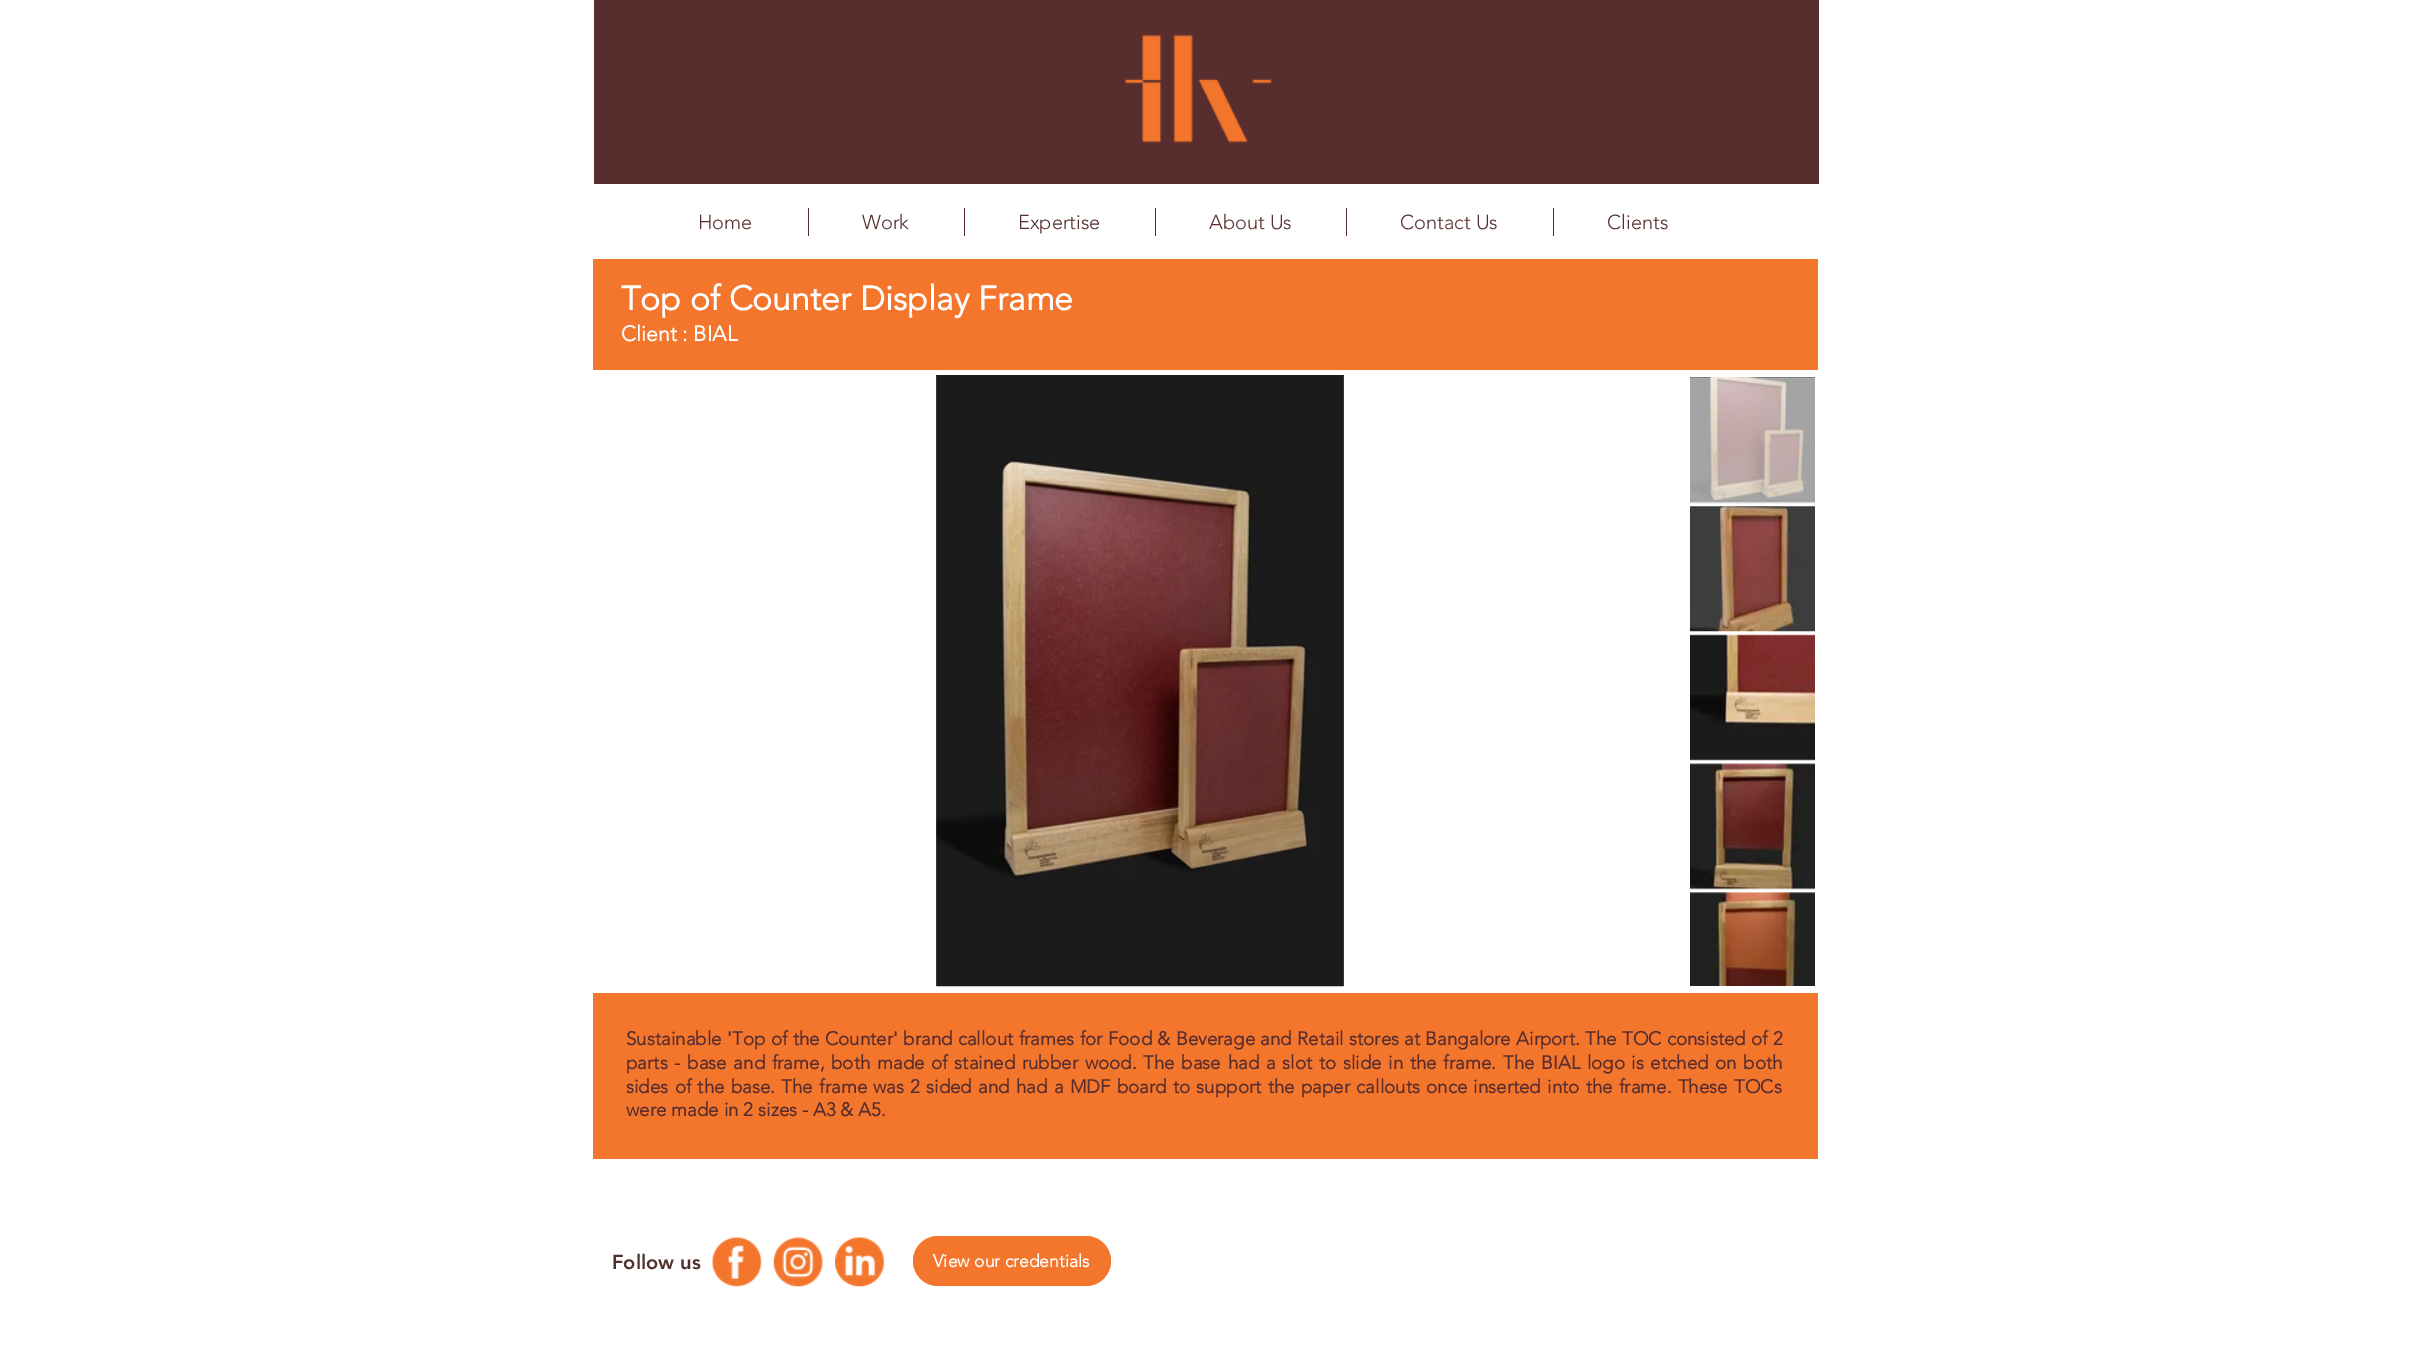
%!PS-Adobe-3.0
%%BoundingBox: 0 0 2411 1362
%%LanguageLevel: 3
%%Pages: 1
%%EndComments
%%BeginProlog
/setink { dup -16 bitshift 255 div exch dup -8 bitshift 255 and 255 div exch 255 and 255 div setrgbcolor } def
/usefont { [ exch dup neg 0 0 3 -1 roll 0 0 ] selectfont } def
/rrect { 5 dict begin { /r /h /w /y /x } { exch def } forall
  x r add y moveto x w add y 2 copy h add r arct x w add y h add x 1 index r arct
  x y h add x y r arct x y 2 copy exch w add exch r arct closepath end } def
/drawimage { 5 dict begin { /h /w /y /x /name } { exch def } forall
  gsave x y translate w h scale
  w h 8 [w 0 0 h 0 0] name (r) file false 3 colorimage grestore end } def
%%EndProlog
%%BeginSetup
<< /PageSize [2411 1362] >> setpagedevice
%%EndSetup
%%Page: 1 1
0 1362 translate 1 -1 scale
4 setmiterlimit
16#FFFFFF setink
0 0 2411 1362 rectfill
16#572D2D setink
594 0 1225 184 rectfill
(img1.raw) 1124 34 148 109 drawimage
/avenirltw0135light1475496-Light 20 usefont
698 229 moveto (Home) show
808 208 1 28 rectfill
862 229 moveto (Work) show
964 208 1 28 rectfill
1018 229 moveto (Expertise) show
1155 208 1 28 rectfill
1209 229 moveto (About Us) show
1346 208 1 28 rectfill
1400 229 moveto (Contact Us) show
1553 208 1 28 rectfill
1607 229 moveto (Clients) show
16#F4762D setink
593 259 1225 111 rectfill
/avenirltw0135light1475496-Bold 33.75 usefont
16#FFFFFF setink
621 310 moveto (Top of Counter Display Frame) show
/avenirltw0135light1475496-Bold 21.25 usefont
621 341 moveto (Client : BIAL) show
(img2.raw) 936 375 408 612 drawimage
(img3.raw) 1690 377 125 127 drawimage
(img4.raw) 1690 506 125 126 drawimage
(img5.raw) 1690 634 125 127 drawimage
(img6.raw) 1690 763 125 127 drawimage
(img7.raw) 1690 892 125 94 drawimage
16#F4762D setink
593 993 1225 166 rectfill
/avenirltw0135light1475496-Bold 18.75 usefont
16#572D2D setink
626 1045 moveto 0.4 0 32 (Sustainable 'Top of the Counter' brand callout frames for Food & Beverage and Retail stores at Bangalore Airport. The TOC consisted of 2) widthshow
626 1069 moveto 1.75 0 32 (parts - base and frame, both made of stained rubber wood. The base had a slot to slide in the frame. The BIAL logo is etched on both) widthshow
626 1093 moveto 1.3 0 32 (sides of the base. The frame was 2 sided and had a MDF board to support the paper callouts once inserted into the frame. These TOCs) widthshow
626 1116 moveto (were made in 2 sizes - A3 & A5.) show
/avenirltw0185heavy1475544-Black 20 usefont
16#503130 setink
612 1269 moveto (Follow us) show
(img8.raw) 712 1237 50 50 drawimage
(img9.raw) 773 1237 50 50 drawimage
(img10.raw) 835 1237 49 50 drawimage
16#F4762D setink
913 1236 198 50 25 rrect fill
/avenirltw0135light1475496-Bold 17.5 usefont
16#FFFFFF setink
933 1267 moveto (View our credentials) show
showpage
%%EOF
